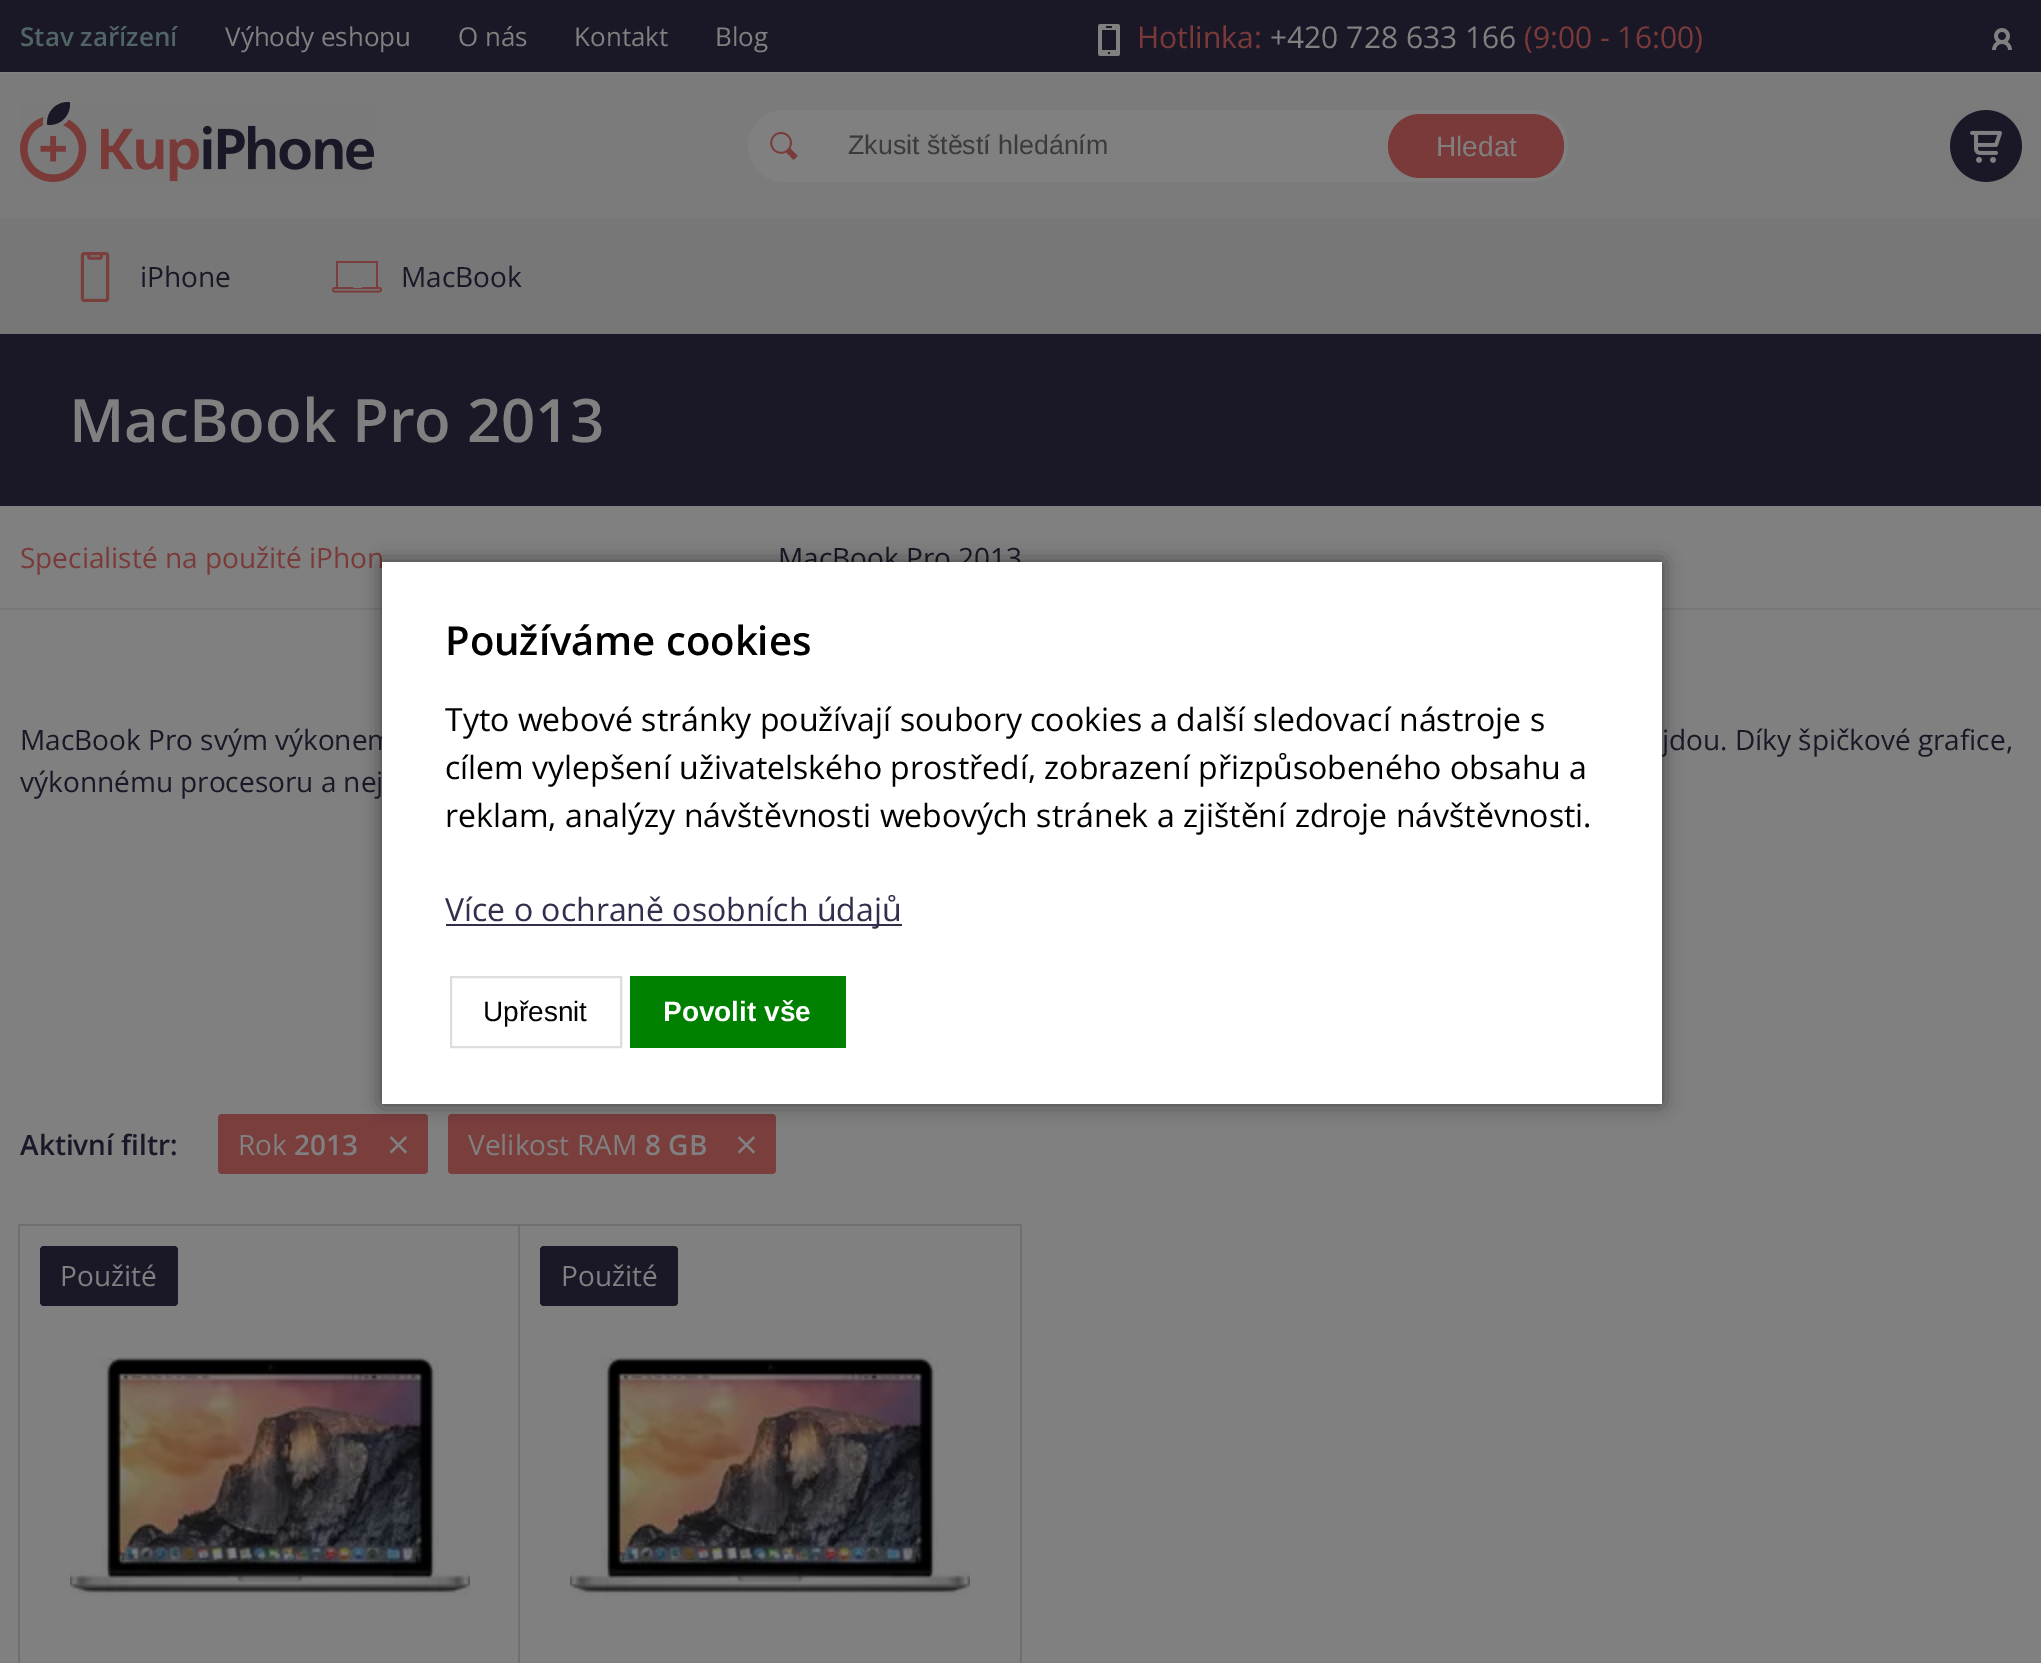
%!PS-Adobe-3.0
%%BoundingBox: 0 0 2041 1663
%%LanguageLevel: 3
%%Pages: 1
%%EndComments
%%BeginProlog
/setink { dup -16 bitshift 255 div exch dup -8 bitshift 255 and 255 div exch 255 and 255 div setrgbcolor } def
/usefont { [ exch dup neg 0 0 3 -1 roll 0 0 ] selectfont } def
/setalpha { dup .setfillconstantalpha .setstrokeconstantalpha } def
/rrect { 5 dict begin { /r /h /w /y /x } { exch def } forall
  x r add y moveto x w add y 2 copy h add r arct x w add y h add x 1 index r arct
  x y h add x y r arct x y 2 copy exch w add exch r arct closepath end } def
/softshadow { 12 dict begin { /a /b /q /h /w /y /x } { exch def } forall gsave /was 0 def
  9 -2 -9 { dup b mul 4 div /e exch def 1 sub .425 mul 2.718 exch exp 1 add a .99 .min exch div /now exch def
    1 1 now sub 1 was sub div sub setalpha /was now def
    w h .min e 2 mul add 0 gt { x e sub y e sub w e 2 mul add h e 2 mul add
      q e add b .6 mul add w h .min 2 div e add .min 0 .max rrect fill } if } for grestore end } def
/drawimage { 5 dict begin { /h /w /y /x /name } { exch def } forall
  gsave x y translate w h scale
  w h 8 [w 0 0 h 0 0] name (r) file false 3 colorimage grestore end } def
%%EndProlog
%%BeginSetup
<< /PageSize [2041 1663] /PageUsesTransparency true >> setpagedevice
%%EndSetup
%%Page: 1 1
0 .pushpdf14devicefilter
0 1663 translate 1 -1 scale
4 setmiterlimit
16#1A1726 setink
0 0 2041 1663 rectfill
16#808080 setink
0 72 2041 2 rectfill
/OpenSans-SemiBold 26 usefont
16#526565 setink
20 46 moveto (Stav zařízení) show
/OpenSans-Regular 26 usefont
16#808080 setink
[
    [(Výhody eshopu) 225 46]
    [(O nás) 458 46]
    [(Kontakt) 574 46]
    [(Blog) 715 46]
] { aload pop moveto show } forall
(img1.raw) 1098 24 22 32 drawimage
/OpenSans-Regular 30 usefont
16#793A39 setink
1137 48 moveto (Hotlinka:) show
16#808080 setink
1270 48 moveto (+420 728 633 166) show
16#793A39 setink
1524 48 moveto (\(9:00 - 16:00\)) show
(img2.raw) 1992 28 20 22 drawimage
16#7B7B7B setink
0 74 2041 144 rectfill
(img3.raw) 20 102 354 80 drawimage
16#808080 setink
748 110 820 72 36 rrect fill
(img4.raw) 770 132 28 28 drawimage
/LiberationSans-Regular 26.75 usefont
16#3B3B3B setink
848 154 moveto (Zkusit štěstí hledáním) show
16#793A39 setink
1388 114 176 64 32 rrect fill
/LiberationSans-Regular 28 usefont
16#808080 setink
1436 156 moveto (Hledat) show
(img5.raw) 1950 110 72 72 drawimage
16#777777 setink
0 218 2041 116 rectfill
(img6.raw) 80 252 30 50 drawimage
/OpenSans-Regular 28 usefont
16#1A1726 setink
140 287 moveto (iPhone) show
(img7.raw) 332 261 50 32 drawimage
401 287 moveto (MacBook) show
/OpenSans-SemiBold 60 usefont
16#808080 setink
69 442 moveto (MacBook Pro 2013) show
0 506 2041 102 rectfill
16#777777 setink
0 608 2041 2 rectfill
/OpenSans-Regular 28 usefont
16#793A39 setink
20 568 moveto (Specialisté na použité iPhon) show
16#1A1726 setink
778 568 moveto (MacBook Pro 2013) show
16#808080 setink
0 610 2041 1053 rectfill
16#7A3E3D setink
218 1114 210 60 4 rrect fill
448 1114 328 60 4 rrect fill
16#000000 setink
382 562 1280 542 0 10 0.5 softshadow
16#1A1726 setink
20 750 moveto (MacBook Pro svým výkonem) show
1662 750 moveto (jdou. Díky špičkové grafice,) show
16#FFFFFF setink
382 562 1280 542 rectfill
/OpenSans-SemiBold 40 usefont
16#000000 setink
445 655 moveto (Používáme cookies) show
/OpenSans-Regular 32 usefont
[
    [(Tyto webové stránky používají soubory cookies a další sledovací nástroje s) 445 731]
    [(cílem vylepšení uživatelského prostředí, zobrazení přizpůsobeného obsahu a) 445 779]
    [(reklam, analýzy návštěvnosti webových stránek a zjištění zdroje návštěvnosti.) 445 827]
] { aload pop moveto show } forall
16#332E4C setink
446 924 456 2 rectfill
445 921 moveto (Více o ochraně osobních údajů) show
16#DDDDDD setink
2 setlinewidth
451 977 170 70 rectstroke
/LiberationSans-Regular 28 usefont
16#000000 setink
483 1021 moveto (Upřesnit) show
16#008000 setink
630 976 216 72 rectfill
/LiberationSans-Bold 28 usefont
16#FFFFFF setink
663 1021 moveto (Povolit vše) show
/OpenSans-Regular 28 usefont
16#1A1726 setink
20 792 moveto (výkonnému procesoru a nej) show
/OpenSans-SemiBold 28 usefont
20 1155 moveto (Aktivní filtr:) show
/OpenSans-Regular 28 usefont
16#808080 setink
238 1155 moveto (Rok) show
/OpenSans-SemiBold 28 usefont
294 1155 moveto (2013) show
/OpenSans-Regular 40 usefont
387 1159 moveto (×) show
/OpenSans-Regular 28 usefont
468 1155 moveto (Velikost RAM) show
/OpenSans-SemiBold 28 usefont
645 1155 moveto (8 GB) show
/OpenSans-Regular 40 usefont
735 1159 moveto (×) show
16#6F6F6F setink
18 1224 moveto 18 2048 lineto 20 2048 lineto 20 1226 lineto 518 1226 lineto 518 1224 lineto closepath fill
16#1A1726 setink
40 1246 138 60 4 rrect fill
/OpenSans-Regular 28 usefont
16#808080 setink
60 1286 moveto (Použité) show
(img8.raw) 70 1357 400 239 drawimage
16#6F6F6F setink
522 1224 moveto 522 1226 lineto 1020 1226 lineto 1020 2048 lineto 1022 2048 lineto 1022 1224 lineto closepath fill
518 1224 moveto 518 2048 lineto 520 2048 lineto 520 1226 lineto 1018 1226 lineto 1018 1224 lineto closepath fill
16#1A1726 setink
540 1246 138 60 4 rrect fill
16#808080 setink
561 1286 moveto (Použité) show
(img8.raw) 570 1357 400 239 drawimage
.poppdf14devicefilter showpage
%%EOF
